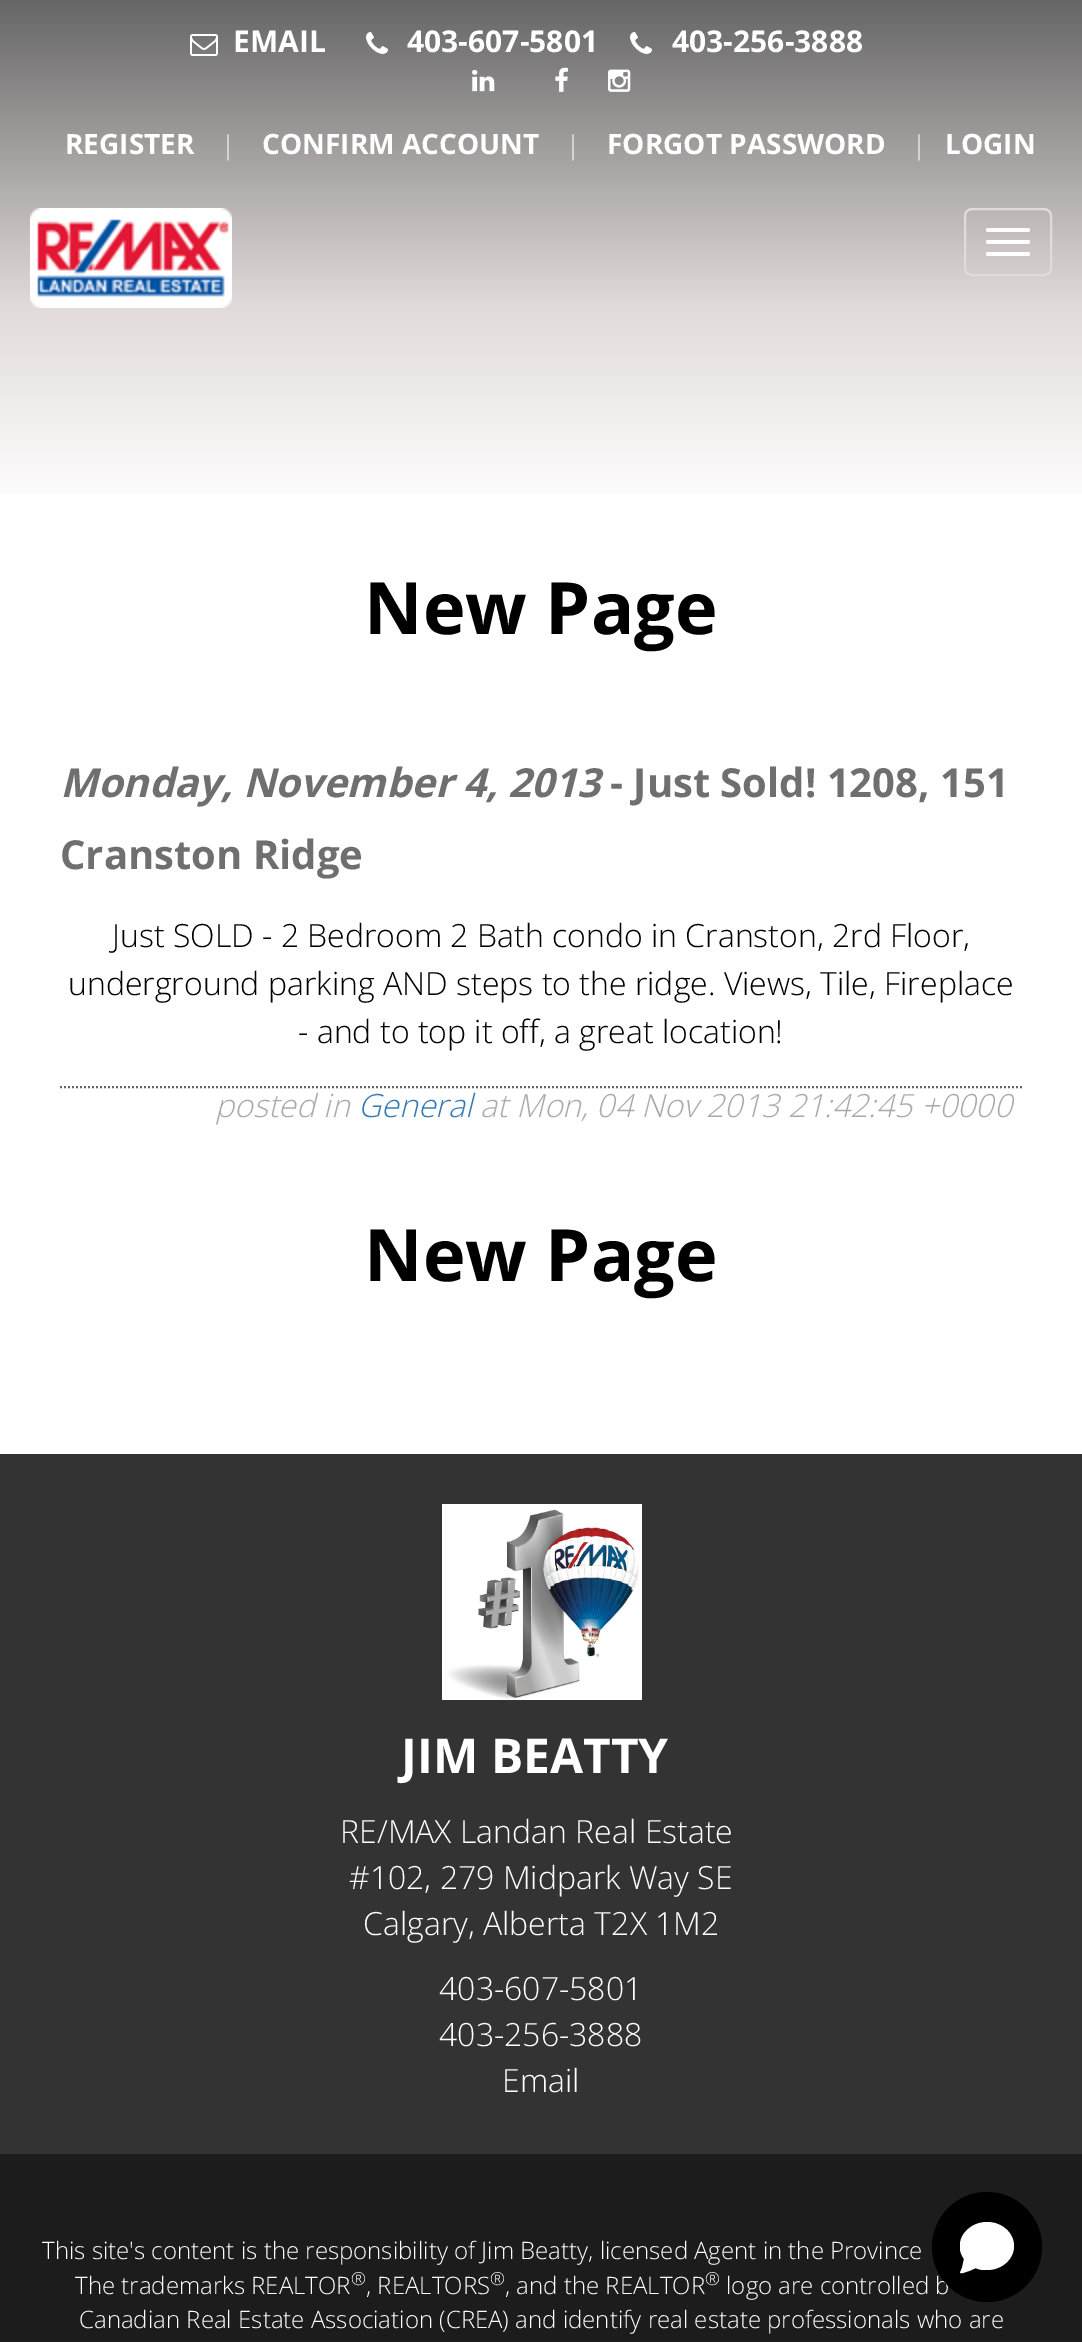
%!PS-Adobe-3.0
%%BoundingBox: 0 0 1082 2342
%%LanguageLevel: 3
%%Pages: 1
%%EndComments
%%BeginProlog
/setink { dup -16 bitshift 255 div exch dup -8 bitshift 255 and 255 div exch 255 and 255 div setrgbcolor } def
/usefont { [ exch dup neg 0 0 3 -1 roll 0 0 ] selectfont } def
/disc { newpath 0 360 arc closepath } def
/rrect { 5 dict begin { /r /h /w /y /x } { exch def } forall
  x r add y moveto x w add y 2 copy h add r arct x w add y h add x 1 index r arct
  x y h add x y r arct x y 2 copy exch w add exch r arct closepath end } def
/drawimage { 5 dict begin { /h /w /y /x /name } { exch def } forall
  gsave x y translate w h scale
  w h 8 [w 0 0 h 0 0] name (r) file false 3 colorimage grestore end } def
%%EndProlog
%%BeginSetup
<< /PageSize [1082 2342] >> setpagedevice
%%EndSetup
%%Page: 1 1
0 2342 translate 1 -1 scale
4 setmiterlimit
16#FFFFFF setink
0 0 1082 2342 rectfill
gsave 0 0 moveto 1082 0 lineto 1082 494 lineto 0 494 lineto closepath clip newpath
<< /ShadingType 2 /ColorSpace /DeviceRGB /Coords [541 0 541 508] /Extend [true true] /Function << /FunctionType 3 /Domain [0 1] /Functions [<< /FunctionType 2 /Domain [0 1] /C0 [0.4 0.4 0.4] /C1 [0.882 0.855 0.855] /N 1 >> << /FunctionType 2 /Domain [0 1] /C0 [0.882 0.855 0.855] /C1 [1 1 1] /N 1 >>] /Bounds [0.6] /Encode [0 1 0 1] >> >> shfill grestore
(img1.raw) 190 34 28 22 drawimage
/OpenSans-Bold 30 usefont
233 52 moveto (EMAIL) show
(img2.raw) 366 32 22 22 drawimage
407 52 moveto (403-607-5801) show
(img2.raw) 630 32 22 22 drawimage
672 52 moveto (403-256-3888) show
(img3.raw) 472 69 23 23 drawimage
(img4.raw) 555 67 13 25 drawimage
(img5.raw) 608 69 23 23 drawimage
/OpenSans-Bold 28 usefont
65 154 moveto (REGISTER) show
/OpenSans-Light 26 usefont
221 154 moveto (|) show
/OpenSans-Bold 28 usefont
262 154 moveto (CONFIRM ACCOUNT) show
/OpenSans-Light 26 usefont
566 154 moveto (|) show
/OpenSans-Bold 28 usefont
607 154 moveto (FORGOT PASSWORD) show
/OpenSans-Light 26 usefont
912 154 moveto (|) show
/OpenSans-Bold 28 usefont
945 154 moveto (LOGIN) show
(img6.raw) 30 208 202 100 drawimage
16#DDDDDD setink
2 setlinewidth
965 209 86 66 7 rrect stroke
16#FFFFFF setink
986 228 44 4 2 rrect fill
986 240 44 4 2 rrect fill
986 252 44 4 2 rrect fill
/OpenSans-Bold 72 usefont
16#000000 setink
364 634 moveto (New Page) show
16#666666 setink
[2 2] 0 setdash
60 1087 moveto 1022 1087 lineto stroke
/OpenSans-BoldItalic 40 usefont
16#6F6F6F setink
60 797 moveto (Monday, November 4, 2013) show
/OpenSans-Bold 40 usefont
610 797 moveto (- Just Sold! 1208, 151) show
60 869 moveto (Cranston Ridge) show
/OpenSans-Light 32 usefont
16#000000 setink
[
    [(Just SOLD - 2 Bedroom 2 Bath condo in Cranston, 2rd Floor,) 112 947]
    [(underground parking AND steps to the ridge. Views, Tile, Fireplace) 68 995]
    [(- and to top it off, a great location!) 298 1043]
] { aload pop moveto show } forall
/OpenSans-LightItalic 32 usefont
16#AAAAAA setink
215 1117 moveto (posted in) show
16#337AB7 setink
358 1117 moveto (General) show
16#AAAAAA setink
480 1117 moveto (at Mon, 04 Nov 2013 21:42:45 +0000) show
/OpenSans-Bold 72 usefont
16#000000 setink
364 1281 moveto (New Page) show
16#333333 setink
0 1454 1082 700 rectfill
(img7.raw) 442 1504 200 196 drawimage
/OpenSans-Bold 48 usefont
16#FFFFFF setink
401 1773 moveto (JIM BEATTY) show
/OpenSans-Light 32 usefont
[
    [(RE/MAX Landan Real Estate) 340 1843]
    [(#102, 279 Midpark Way SE) 349 1889]
    [(Calgary, Alberta T2X 1M2) 363 1935]
    [(403-607-5801) 439 2000]
    [(403-256-3888) 439 2046]
    [(Email) 502 2092]
] { aload pop moveto show } forall
16#1C1C1C setink
0 2154 1082 188 rectfill
/OpenSans-Light 24 usefont
16#FFFFFF setink
42 2259 moveto (This site's content is the responsibility of Jim Beatty, licensed Agent in the Province) show
75 2294 moveto (The trademarks REALTOR) show
/OpenSans-Light 18 usefont
351 2285 moveto (®) show
/OpenSans-Light 24 usefont
366 2294 moveto (, REALTORS) show
/OpenSans-Light 18 usefont
490 2285 moveto (®) show
/OpenSans-Light 24 usefont
505 2294 moveto (, and the REALTOR) show
/OpenSans-Light 18 usefont
705 2285 moveto (®) show
/OpenSans-Light 24 usefont
726 2294 moveto (logo are controlled b) show
79 2328 moveto (Canadian Real Estate Association \(CREA\) and identify real estate professionals who are) show
16#000000 setink
987 2247 55 disc fill
gsave
960 2220 54 54 rectclip
16#FFFFFF setink
987 2222 moveto 967 2222 952 2242 964 2259 curveto 962 2268 lineto 961 2271 958 2274 963 2273 curveto 969 2271 lineto 976 2268 lineto 979 2270 983 2270 987 2270 curveto 1002 2270 1014 2259 1014 2246 curveto 1014 2233 1002 2222 987 2222 curveto closepath fill
grestore
showpage
%%EOF
